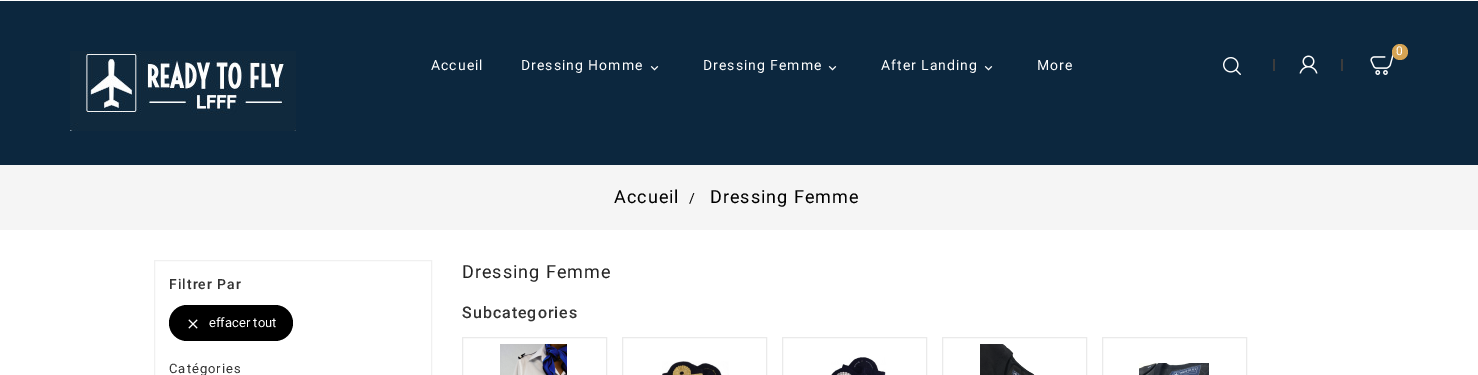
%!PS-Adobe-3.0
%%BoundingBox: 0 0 1478 375
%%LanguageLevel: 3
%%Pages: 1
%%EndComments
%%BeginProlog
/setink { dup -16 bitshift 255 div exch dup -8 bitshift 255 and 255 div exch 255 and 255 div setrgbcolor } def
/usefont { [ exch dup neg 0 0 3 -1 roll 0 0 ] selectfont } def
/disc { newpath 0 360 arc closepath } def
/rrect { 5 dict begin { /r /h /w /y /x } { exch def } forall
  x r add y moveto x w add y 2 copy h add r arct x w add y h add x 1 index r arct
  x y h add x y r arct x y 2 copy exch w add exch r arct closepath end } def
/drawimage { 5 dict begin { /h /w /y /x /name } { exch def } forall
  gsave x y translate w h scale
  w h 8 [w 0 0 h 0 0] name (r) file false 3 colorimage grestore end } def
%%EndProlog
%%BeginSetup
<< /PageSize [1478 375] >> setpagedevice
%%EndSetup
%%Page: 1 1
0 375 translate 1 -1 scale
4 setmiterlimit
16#FFFFFF setink
0 0 1478 375 rectfill
16#0C273E setink
0 1 1478 164 rectfill
(img1.raw) 70 51 226 80 drawimage
/Roboto-Regular 14 usefont
16#FFFFFF setink
431 70 moveto 1 0 (Accueil) ashow
521 70 moveto 1 0 (Dressing Homme) ashow
(img2.raw) 650 66 9 5 drawimage
703 70 moveto 1 0 (Dressing Femme) ashow
(img2.raw) 828 66 9 5 drawimage
881 70 moveto 1 0 (After Landing) ashow
(img2.raw) 984 66 9 5 drawimage
1037 70 moveto 1 0 (More) ashow
(img3.raw) 1370 53 24 22 drawimage
16#D5A353 setink
1400 52 8 disc fill
/Roboto-Regular 12 usefont
16#FFFFFF setink
1396 55 moveto 1 0 (0) ashow
(img4.raw) 1223 57 18 18 drawimage
16#3C3C3C setink
1273 59 2 12 rectfill
(img5.raw) 1299 55 19 19 drawimage
1341 59 2 12 rectfill
16#F5F5F5 setink
0 165 1478 65 rectfill
/Roboto-Regular 18 usefont
16#000000 setink
614 203 moveto 1 0 (Accueil) ashow
/Roboto-Regular 14 usefont
689 203 moveto 1 0 (/) ashow
/Roboto-Regular 18 usefont
710 203 moveto 1 0 (Dressing Femme) ashow
16#F0F0F0 setink
154.5 260.5 277 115 rectstroke
/Roboto-Medium 14 usefont
16#333333 setink
169 289 moveto 1 0 (Filtrer Par) ashow
16#000000 setink
169 305 124 36 18 rrect fill
(img6.raw) 188 319 10 10 drawimage
/Roboto-Regular 13 usefont
16#FFFFFF setink
209 327 moveto (effacer tout) show
16#333333 setink
169 373 moveto 1 0 (Catégories) ashow
/Roboto-Regular 18 usefont
16#232323 setink
462 278 moveto 1 0 (Dressing Femme) ashow
/Roboto-Medium 16 usefont
16#333333 setink
462 318 moveto 1 0 (Subcategories) ashow
16#EAEAEA setink
462.5 337.5 144 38 rectstroke
(img7.raw) 500 344 67 31 drawimage
622.5 337.5 144 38 rectstroke
(img8.raw) 662 361 67 14 drawimage
782.5 337.5 144 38 rectstroke
(img9.raw) 831 357 55 18 drawimage
942.5 337.5 144 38 rectstroke
(img10.raw) 980 344 55 31 drawimage
1102.5 337.5 144 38 rectstroke
(img11.raw) 1139 363 70 12 drawimage
showpage
%%EOF
